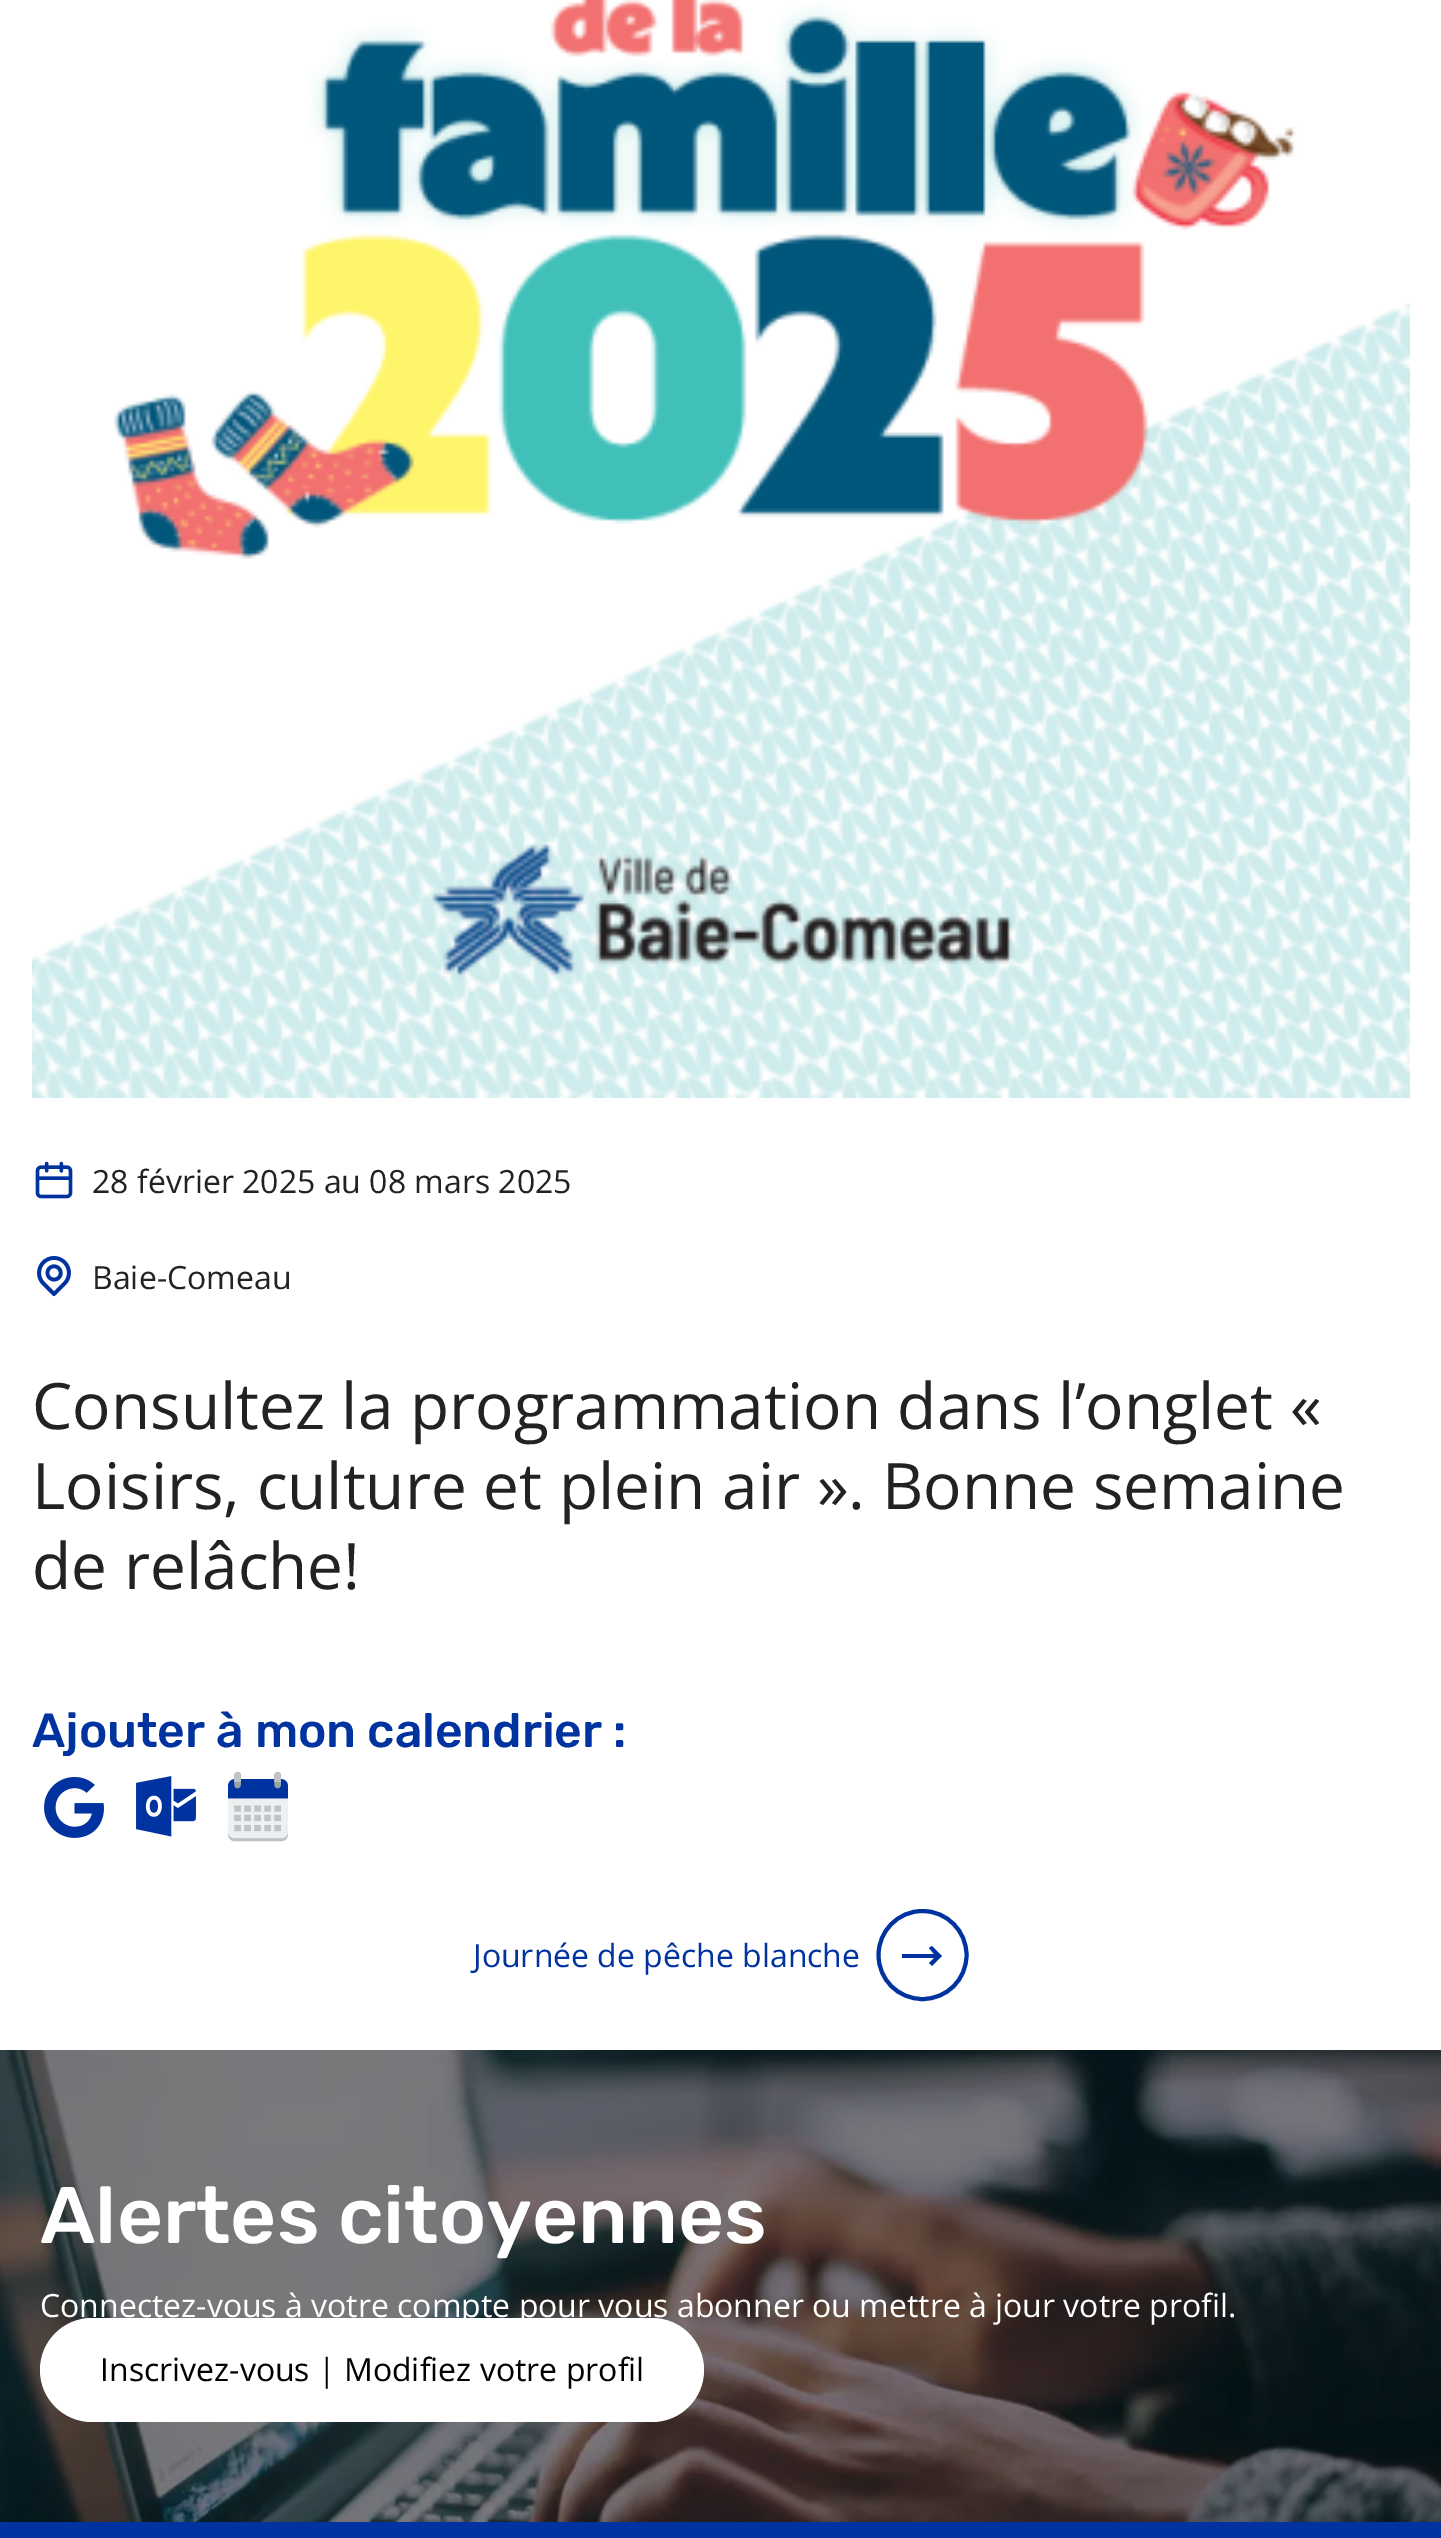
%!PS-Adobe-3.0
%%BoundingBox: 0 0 1441 2538
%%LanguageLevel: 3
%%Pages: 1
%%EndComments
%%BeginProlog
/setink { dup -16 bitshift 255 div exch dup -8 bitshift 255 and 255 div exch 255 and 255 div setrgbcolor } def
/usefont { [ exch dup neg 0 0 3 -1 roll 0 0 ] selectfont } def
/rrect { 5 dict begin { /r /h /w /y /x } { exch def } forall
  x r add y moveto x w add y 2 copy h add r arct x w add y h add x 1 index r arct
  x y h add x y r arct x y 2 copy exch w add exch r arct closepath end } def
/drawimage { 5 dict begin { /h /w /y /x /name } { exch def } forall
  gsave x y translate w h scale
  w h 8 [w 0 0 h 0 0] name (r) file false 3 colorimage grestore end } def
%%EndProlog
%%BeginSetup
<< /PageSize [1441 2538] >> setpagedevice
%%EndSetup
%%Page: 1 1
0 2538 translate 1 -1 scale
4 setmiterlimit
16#FFFFFF setink
0 0 1441 2538 rectfill
(img1.raw) 32 0 1378 1098 drawimage
(img2.raw) 35 1161 38 38 drawimage
/OpenSans-Regular 32 usefont
16#222221 setink
92 1193 moveto (28 février 2025 au 08 mars 2025) show
(img3.raw) 37 1256 34 41 drawimage
92 1289 moveto (Baie-Comeau) show
/OpenSans-Regular 64 usefont
[
    [(Consultez la programmation dans l’onglet «) 32 1429]
    [(Loisirs, culture et plein air ». Bonne semaine) 32 1509]
    [(de relâche!) 32 1589]
] { aload pop moveto show } forall
/Rubik-Medium 48 usefont
16#0033A0 setink
32 1747 moveto (Ajouter à mon calendrier :) show
(img4.raw) 44 1777 60 61 drawimage
(img5.raw) 136 1776 60 61 drawimage
(img6.raw) 228 1772 60 70 drawimage
/OpenSans-Regular 32 usefont
473 1967 moveto (Journée de pêche blanche) show
902 1958 moveto 934 1958 lineto 929 1963 lineto 932 1966 lineto 942 1956 lineto 932 1946 lineto 929 1948 lineto 934 1954 lineto 902 1954 lineto closepath fill
4 setlinewidth
922.5 1999 moveto 898 1999 878.5 1979.5 878.5 1955 curveto 878.5 1931 898 1911 922.5 1911 curveto 947 1911 966.5 1931 966.5 1955 curveto 966.5 1979.5 947 1999 922.5 1999 curveto closepath stroke
(img7.raw) 0 2050 1441 472 drawimage
/Rubik-Medium 80 usefont
16#FFFFFF setink
40 2243 moveto (Alertes citoyennes) show
/OpenSans-Regular 32 usefont
40 2317 moveto (Connectez-vous à votre compte pour vous abonner ou mettre à jour votre profil.) show
40 2318 664 104 52 rrect fill
16#000000 setink
100 2381 moveto (Inscrivez-vous | Modifiez votre profil) show
16#0033A0 setink
0 2522 1441 16 rectfill
showpage
%%EOF
